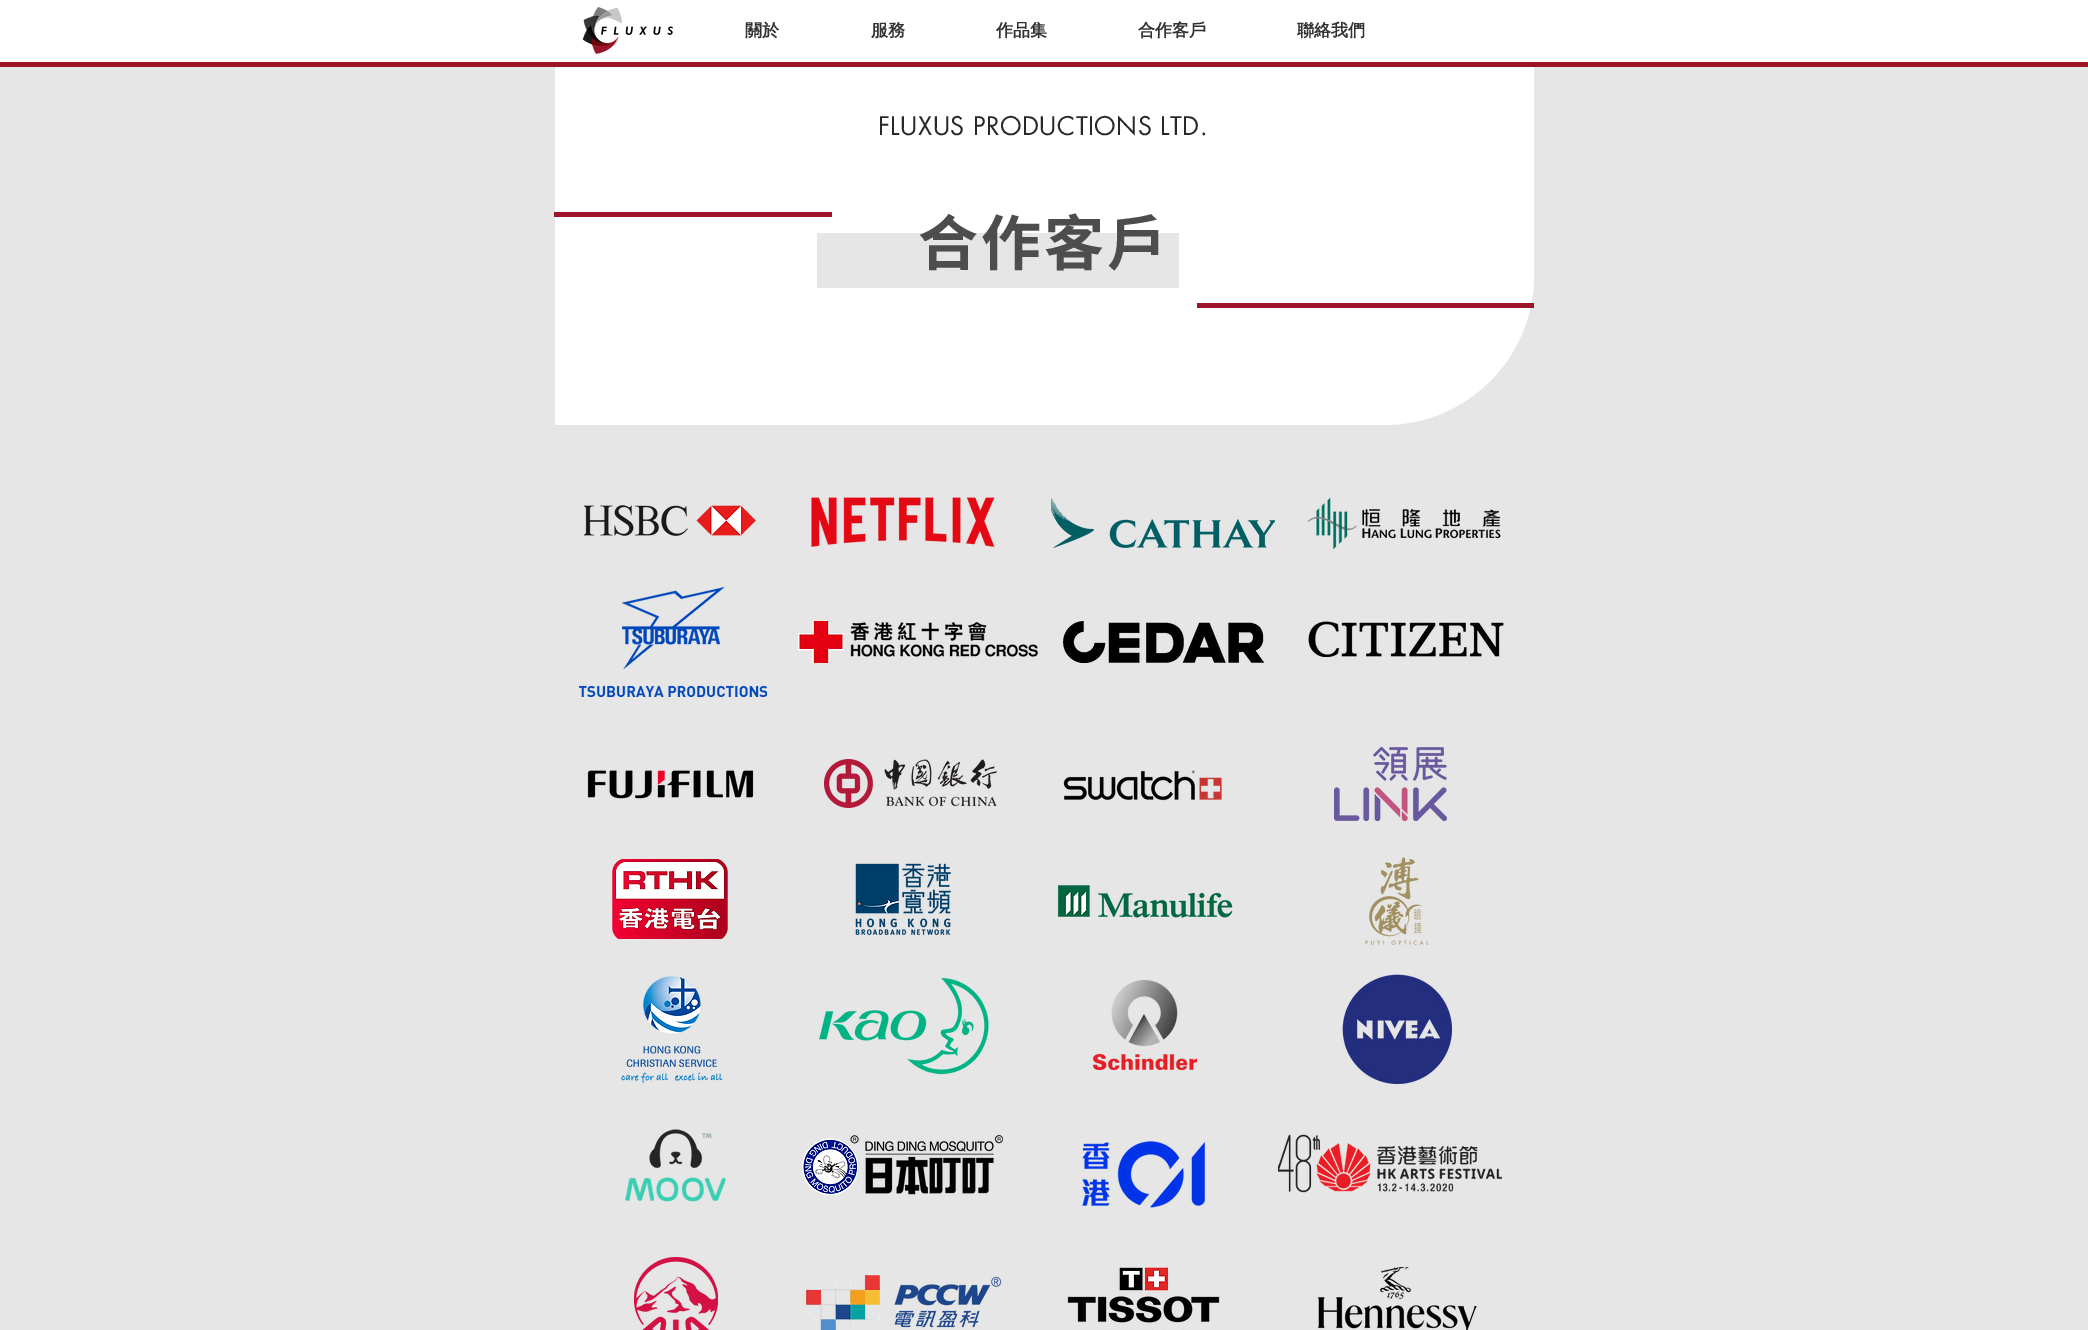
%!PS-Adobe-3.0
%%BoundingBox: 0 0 2088 1330
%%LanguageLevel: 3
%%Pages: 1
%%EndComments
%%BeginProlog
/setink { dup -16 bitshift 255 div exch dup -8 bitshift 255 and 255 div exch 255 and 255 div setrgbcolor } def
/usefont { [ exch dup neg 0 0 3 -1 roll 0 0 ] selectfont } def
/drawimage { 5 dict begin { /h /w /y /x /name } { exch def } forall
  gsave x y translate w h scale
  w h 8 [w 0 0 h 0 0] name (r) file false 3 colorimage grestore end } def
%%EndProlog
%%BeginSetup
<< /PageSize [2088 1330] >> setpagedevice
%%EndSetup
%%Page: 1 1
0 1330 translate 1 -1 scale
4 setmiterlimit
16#FFFFFF setink
0 0 2088 1330 rectfill
(img1.raw) 582 7 91 47 drawimage
/WenQuanYiZenHei-Bold 17 usefont
16#323232 setink
[
    [(關於) 745 36]
    [(服務) 871 36]
    [(作品集) 996 36]
    [(合作客戶) 1138 36]
    [(聯絡我們) 1297 36]
] { aload pop moveto show } forall
16#9B1428 setink
0 62 2088 5 rectfill
16#E6E6E6 setink
0 67 2088 1263 rectfill
16#FFFFFF setink
555 67 moveto 1534 67 lineto 1534 275 lineto 1534 358 1467 425 1384 425 curveto 555 425 lineto closepath fill
/futura-Regular 25 usefont
16#282828 setink
878 135 moveto 0.5 0 (FLUXUS PRODUCTIONS LTD.) ashow
16#9B1428 setink
554 212 278 5 rectfill
16#E6E6E6 setink
817 233 362 55 rectfill
/NotoSansTC-Bold 60 usefont
16#4D4D4D setink
918 265 moveto 3 0 (合作客戶) ashow
16#9B1428 setink
1197 303 337 5 rectfill
(img2.raw) 584 505 172 31 drawimage
(img3.raw) 811 497 184 50 drawimage
(img4.raw) 1051 498 224 50 drawimage
(img5.raw) 1307 497 194 52 drawimage
(img6.raw) 579 587 188 110 drawimage
(img7.raw) 798 621 240 42 drawimage
(img8.raw) 1063 621 201 42 drawimage
(img9.raw) 1308 621 196 36 drawimage
(img10.raw) 587 770 167 29 drawimage
(img11.raw) 824 759 173 49 drawimage
(img12.raw) 1063 770 159 31 drawimage
(img13.raw) 1334 747 113 74 drawimage
(img14.raw) 612 859 116 80 drawimage
(img15.raw) 855 863 96 73 drawimage
(img16.raw) 1057 885 176 33 drawimage
(img17.raw) 1365 857 64 88 drawimage
(img18.raw) 621 976 102 107 drawimage
(img19.raw) 819 977 170 98 drawimage
(img20.raw) 1093 980 104 90 drawimage
(img21.raw) 1342 974 110 110 drawimage
(img22.raw) 625 1129 101 73 drawimage
(img23.raw) 802 1135 201 60 drawimage
(img24.raw) 1082 1141 124 67 drawimage
(img25.raw) 1278 1134 224 59 drawimage
(img26.raw) 634 1257 84 73 drawimage
(img27.raw) 806 1275 196 55 drawimage
(img28.raw) 1067 1267 153 63 drawimage
(img29.raw) 1317 1267 160 63 drawimage
showpage
%%EOF
